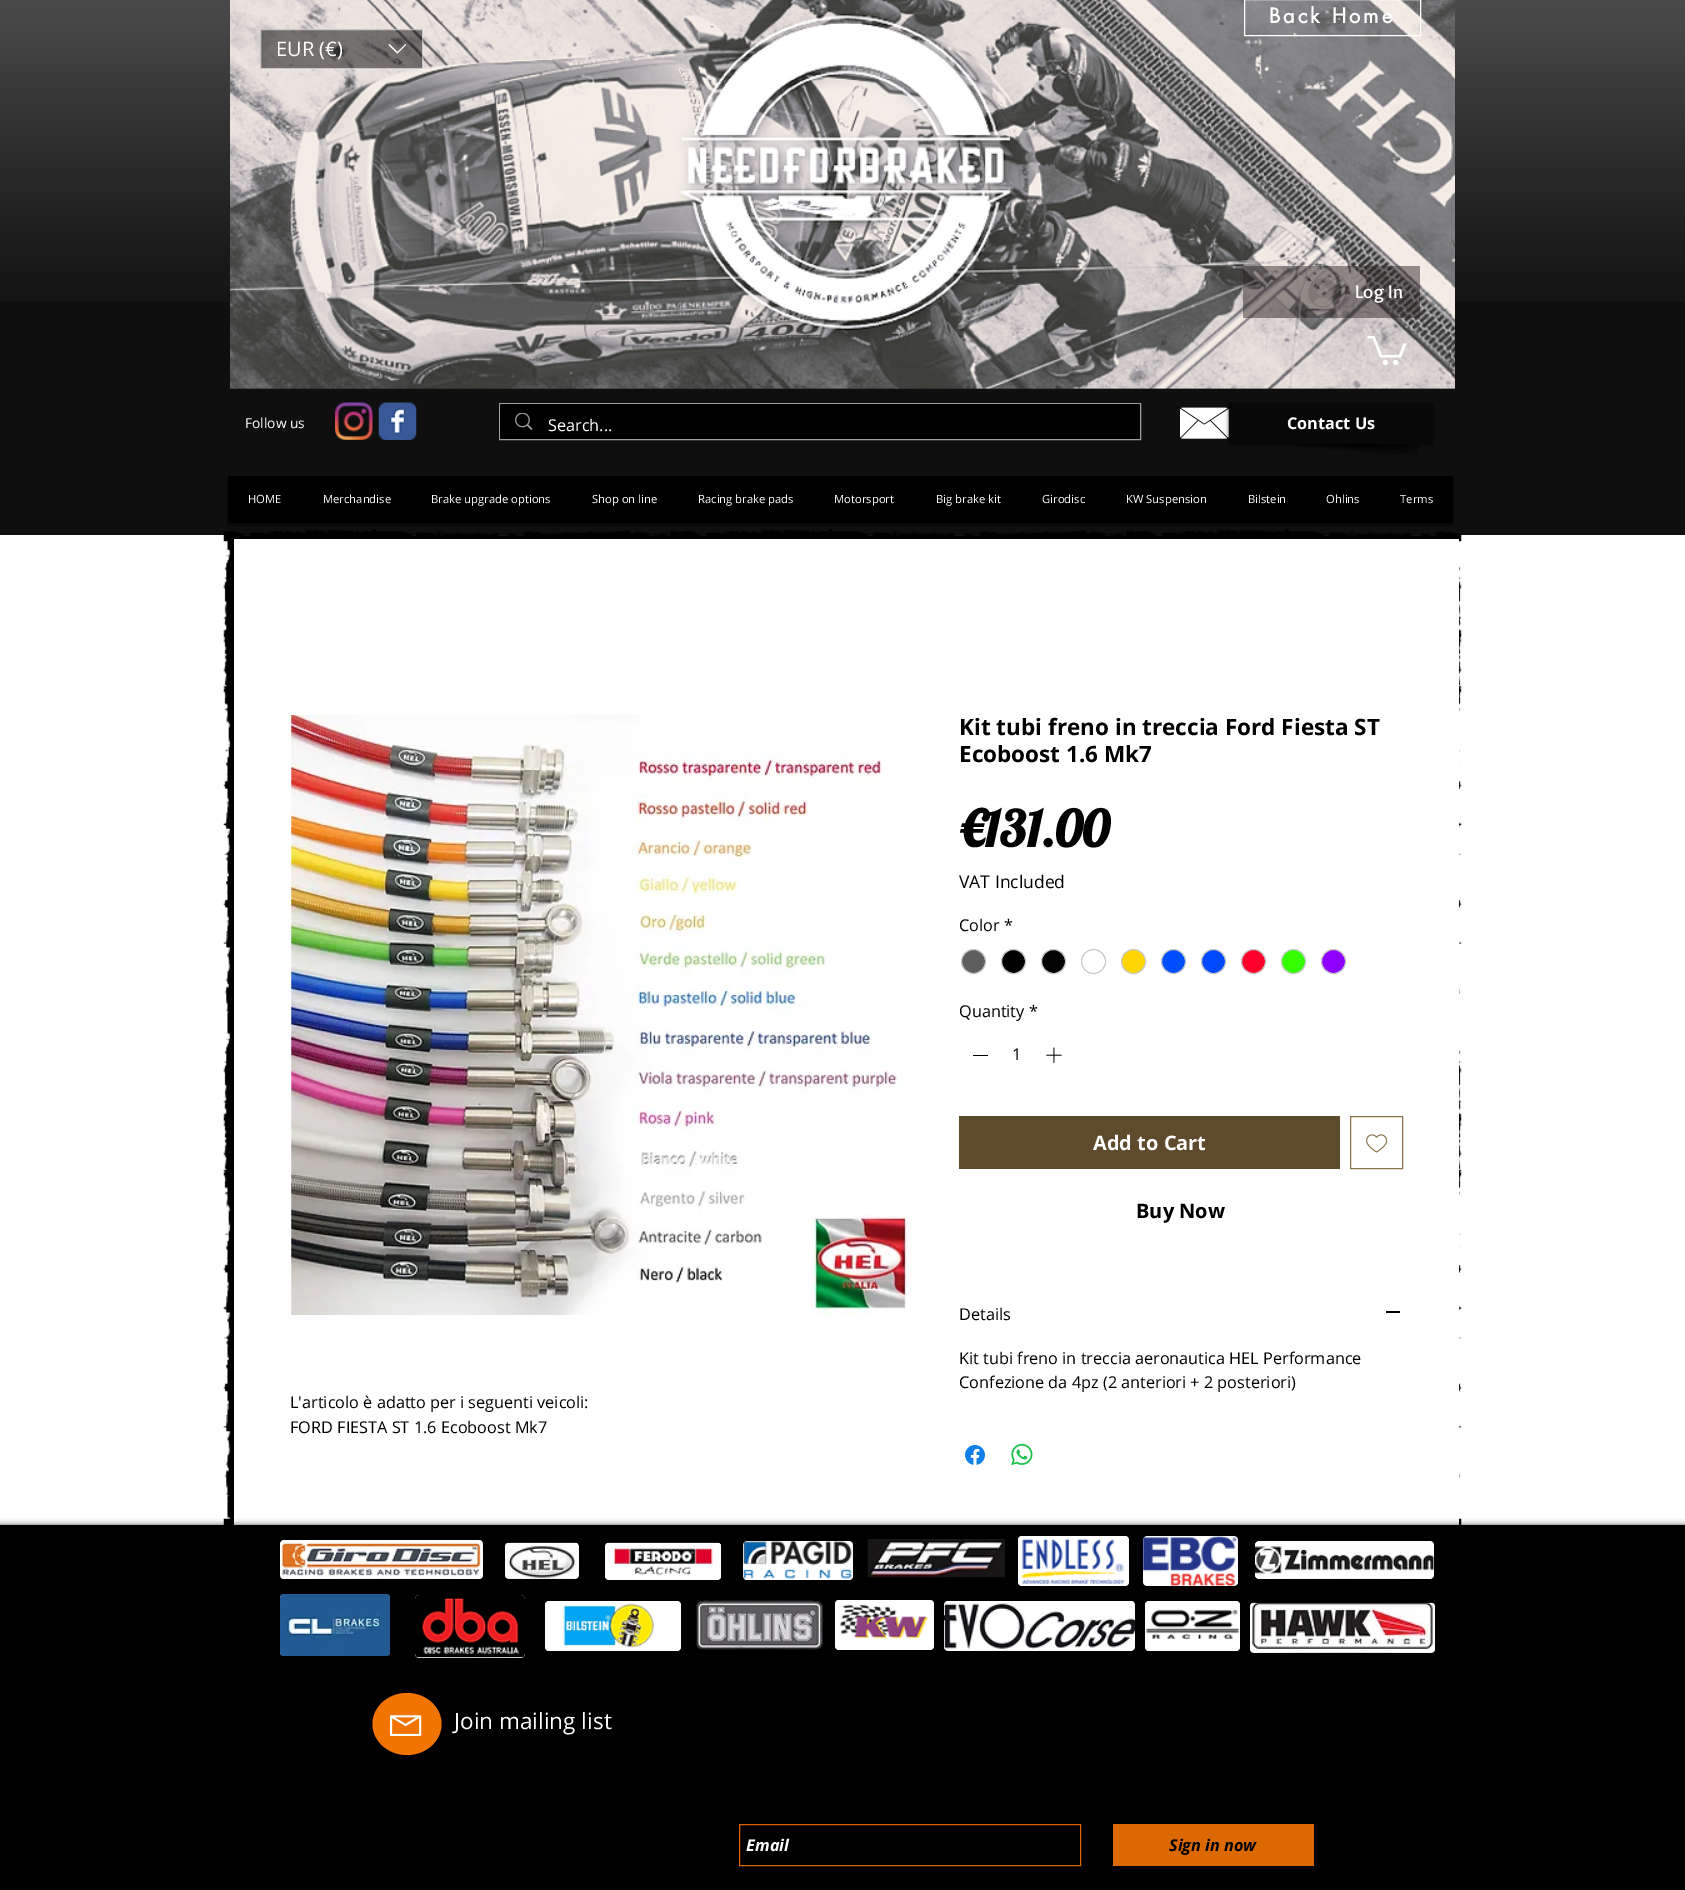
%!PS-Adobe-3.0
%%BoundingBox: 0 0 1685 1890
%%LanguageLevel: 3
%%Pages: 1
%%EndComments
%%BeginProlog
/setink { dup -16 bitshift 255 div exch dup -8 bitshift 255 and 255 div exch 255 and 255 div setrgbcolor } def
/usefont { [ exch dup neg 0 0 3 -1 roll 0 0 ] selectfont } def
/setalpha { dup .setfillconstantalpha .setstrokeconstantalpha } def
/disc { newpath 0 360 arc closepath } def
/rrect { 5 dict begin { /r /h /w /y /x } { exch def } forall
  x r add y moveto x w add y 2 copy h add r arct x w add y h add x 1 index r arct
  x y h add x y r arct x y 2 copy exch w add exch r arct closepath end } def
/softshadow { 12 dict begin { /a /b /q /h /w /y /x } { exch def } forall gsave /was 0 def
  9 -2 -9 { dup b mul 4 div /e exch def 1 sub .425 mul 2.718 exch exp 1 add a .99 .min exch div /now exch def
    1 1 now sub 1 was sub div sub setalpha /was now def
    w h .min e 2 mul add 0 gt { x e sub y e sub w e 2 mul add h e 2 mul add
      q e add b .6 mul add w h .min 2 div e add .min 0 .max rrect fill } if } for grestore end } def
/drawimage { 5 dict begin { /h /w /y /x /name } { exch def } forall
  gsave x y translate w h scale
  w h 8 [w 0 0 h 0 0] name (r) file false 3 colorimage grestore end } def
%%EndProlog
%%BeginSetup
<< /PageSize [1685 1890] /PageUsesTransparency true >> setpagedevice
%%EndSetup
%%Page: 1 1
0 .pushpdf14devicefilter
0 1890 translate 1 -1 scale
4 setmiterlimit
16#FFFFFF setink
0 0 1685 1890 rectfill
16#0F0F0F setink
0 0 1685 535 rectfill
(img1.raw) 0 0 1685 302 drawimage
16#242323 setink
230 388 1225 1 rectfill
(img2.raw) 230 0 1225 389 drawimage
16#FFFFFF setink
1244.5 -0.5 176 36 rectstroke
/futura-Bold 20 usefont
1269 23 moveto 3 0 (Back Home) ashow
0.5 setalpha
16#000000 setink
260 29 163 40 rectfill
0.6 setalpha
16#FFFFFF setink
260.5 29.5 162 39 rectstroke
/OpenSans-Regular 20 usefont
1 setalpha
276 56 moveto (EUR \(€\)) show
405.5 44 moveto 406 45 lineto 397.5 53.5 lineto 388.5 45 lineto 389.5 44 lineto 397.5 52 lineto closepath eofill
0.49 setalpha
16#2D2525 setink
1243 266 177 52 rectfill
1 setalpha
(img3.raw) 1308 278 29 30 drawimage
/Overlock-Bold 19 usefont
16#FFFFFF setink
1355 298 moveto (Log In) show
1406.5 343.5 moveto 1401 357.5 lineto 1380 357.5 lineto 1373 338.5 lineto 1367.5 338.5 lineto 1367.5 336 lineto 1374.5 336 lineto 1382 355 lineto 1399 355 lineto 1403.5 343.5 lineto fill
1395.7 362.5 2.5 disc fill
1385.3 362.5 2.5 disc fill
/OpenSans-Regular 13.75 usefont
245 428 moveto (Follow us) show
(img4.raw) 335 402 38 38 drawimage
(img5.raw) 378 402 39 38 drawimage
16#9F9F9F setink
499.5 403.5 641 36 rectstroke
16#000000 setink
500 404 640 35 rectfill
(img6.raw) 515 413 18 17 drawimage
/OpenSans-Regular 16.25 usefont
16#FFFFFF setink
548 431 moveto (Search...) show
(img7.raw) 1180 407 49 32 drawimage
(img8.raw) 1294 444 125 11 drawimage
gsave
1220 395 moveto 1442 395 lineto 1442 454 lineto 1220 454 lineto closepath 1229 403 moveto 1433 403 lineto 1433 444 lineto 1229 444 lineto closepath eoclip newpath
16#000000 setink
1229 404 204 41 0 2.5 0.6 softshadow
grestore
0.49 setalpha
16#000000 setink
1229 403 204 41 rectfill
/OpenSans-Bold 16.25 usefont
1 setalpha
16#FFFFFF setink
1287 429 moveto (Contact Us) show
16#000000 setink
228 479 1225 46 0 2 0.7 softshadow
228 476 1225 47 rectfill
/OpenSans-Regular 11.25 usefont
16#FFFFFF setink
[
    [(HOME) 248 503]
    [(Merchandise) 323 503]
    [(Brake upgrade options) 431 503]
    [(Shop on line) 592 503]
    [(Racing brake pads) 698 503]
    [(Motorsport) 834 503]
    [(Big brake kit) 936 503]
    [(Girodisc) 1042 503]
    [(KW Suspension) 1126 503]
    [(Bilstein) 1248 503]
    [(Ohlins) 1326 503]
    [(Terms) 1400 503]
] { aload pop moveto show } forall
(img9.raw) 223 529 1239 13 drawimage
(img10.raw) 223 1518 1239 7 drawimage
(img11.raw) 223 541 11 978 drawimage
(img12.raw) 1459 566 3 912 drawimage
234 539 1225 986 rectfill
/OpenSans-Bold 22.5 usefont
16#000000 setink
959 735 moveto (Kit tubi freno in treccia Ford Fiesta ST) show
959 762 moveto (Ecoboost 1.6 Mk7) show
/Lobster-Bold 50 usefont
959 847 moveto (€131.00) show
/OpenSans-Regular 17.5 usefont
959 888 moveto (VAT Included) show
/OpenSans-Regular 16.25 usefont
959 931 moveto (Color) show
1004 931 moveto (*) show
16#5E5E5E setink
973.5 961.5 12 disc gsave fill grestore
16#C9C9C9 setink
stroke
16#000000 setink
1013.5 961.5 12 disc gsave fill grestore
16#C9C9C9 setink
stroke
16#030303 setink
1053.5 961.5 12 disc gsave fill grestore
16#C9C9C9 setink
stroke
1093.5 961.5 12 disc stroke
16#FFD500 setink
1133.5 961.5 12 disc gsave fill grestore
16#C9C9C9 setink
stroke
16#004FFF setink
1173.5 961.5 12 disc gsave fill grestore
16#C9C9C9 setink
stroke
16#0049FF setink
1213.5 961.5 12 disc gsave fill grestore
16#C9C9C9 setink
stroke
16#FF002D setink
1253.5 961.5 12 disc gsave fill grestore
16#C9C9C9 setink
stroke
16#34FF00 setink
1293.5 961.5 12 disc gsave fill grestore
16#C9C9C9 setink
stroke
16#8D00FF setink
1333.5 961.5 12 disc gsave fill grestore
16#C9C9C9 setink
stroke
16#000000 setink
959 1017 moveto (Quantity) show
1029 1017 moveto (*) show
973 1055 15 1 rectfill
1012 1060 moveto (1) show
(img13.raw) 1046 1047 16 16 drawimage
16#5D4B2B setink
959 1116 381 53 rectfill
/OpenSans-Bold 20 usefont
16#FFFFFF setink
1093 1150 moveto (Add to Cart) show
16#89744D setink
1350.5 1116.5 52 52 rectstroke
(img14.raw) 1366 1134 22 19 drawimage
16#000000 setink
1136 1218 moveto (Buy Now) show
/OpenSans-Regular 16.25 usefont
959 1320 moveto (Details) show
1386 1311 14 2 rectfill
959 1364 moveto (Kit tubi freno in treccia aeronautica HEL Performance) show
959 1388 moveto (Confezione da 4pz \(2 anteriori + 2 posteriori\)) show
(img15.raw) 965 1445 20 20 drawimage
(img16.raw) 1011 1443 22 23 drawimage
(img17.raw) 291 715 620 600 drawimage
290 1408 moveto (L'articolo è adatto per i seguenti veicoli:) show
290 1433 moveto (FORD FIESTA ST 1.6 Ecoboost Mk7) show
0 1525 1685 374 0 3 0.7 softshadow
0 1525 1685 365 rectfill
16#FFFFFF setink
280 1540 203 39 4 rrect fill
(img18.raw) 280 1541 201 36 drawimage
(img19.raw) 296 1578 171 1 drawimage
(img20.raw) 482 1542 1 17 drawimage
505 1543 74 36 4 rrect fill
(img21.raw) 505 1542 74 37 drawimage
(img22.raw) 507 1578 70 1 drawimage
(img23.raw) 605 1542 116 38 drawimage
743 1541 110 39 4 rrect fill
(img24.raw) 743 1541 109 38 drawimage
(img25.raw) 852 1543 1 17 drawimage
(img26.raw) 867 1539 138 39 drawimage
1018 1536 111 50 4 rrect fill
(img27.raw) 1021 1538 104 47 drawimage
0.03 setalpha
16#000000 setink
1128 1538 1 20 rectfill
1 setalpha
16#FFFFFF setink
1143 1536 95 50 4 rrect fill
(img28.raw) 1142 1536 95 50 drawimage
(img29.raw) 1237 1538 1 27 drawimage
1255 1541 179 38 4 rrect fill
(img30.raw) 1255 1541 179 38 drawimage
(img31.raw) 1259 1578 171 1 drawimage
(img32.raw) 280 1594 110 62 drawimage
415 1595 110 63 4 rrect fill
(img33.raw) 415 1595 110 63 drawimage
(img34.raw) 417 1657 106 1 drawimage
545 1601 136 50 4 rrect fill
(img35.raw) 563 1603 91 45 drawimage
(img36.raw) 696 1600 128 50 drawimage
835 1600 99 50 4 rrect fill
(img37.raw) 840 1604 89 35 drawimage
0.03 setalpha
16#000000 setink
933 1602 1 20 rectfill
1 setalpha
16#FFFFFF setink
944 1601 191 50 4 rrect fill
(img38.raw) 944 1603 191 48 drawimage
1145 1601 95 50 4 rrect fill
(img39.raw) 1146 1609 93 31 drawimage
1250 1603 185 50 4 rrect fill
(img40.raw) 1250 1602 185 50 drawimage
(img41.raw) 1252 1652 181 1 drawimage
16#F17300 setink
407 1693 moveto 426 1693 441.5 1707 441.5 1724 curveto 441.5 1741 426 1755 407 1755 curveto 388 1755 372.5 1741 372.5 1724 curveto 372.5 1707 388 1693 407 1693 curveto closepath fill
(img42.raw) 390 1715 32 21 drawimage
/OpenSans-Regular 22.5 usefont
16#FFFFFF setink
454 1729 moveto (Join mailing list) show
16#D66600 setink
739.5 1824.5 341 41 rectstroke
/OpenSans-BoldItalic 16.25 usefont
16#FFFFFF setink
746 1851 moveto (Email) show
16#DB6900 setink
1113 1824 201 42 rectfill
16#000000 setink
1169 1851 moveto (Sign in now) show
.poppdf14devicefilter showpage
%%EOF
